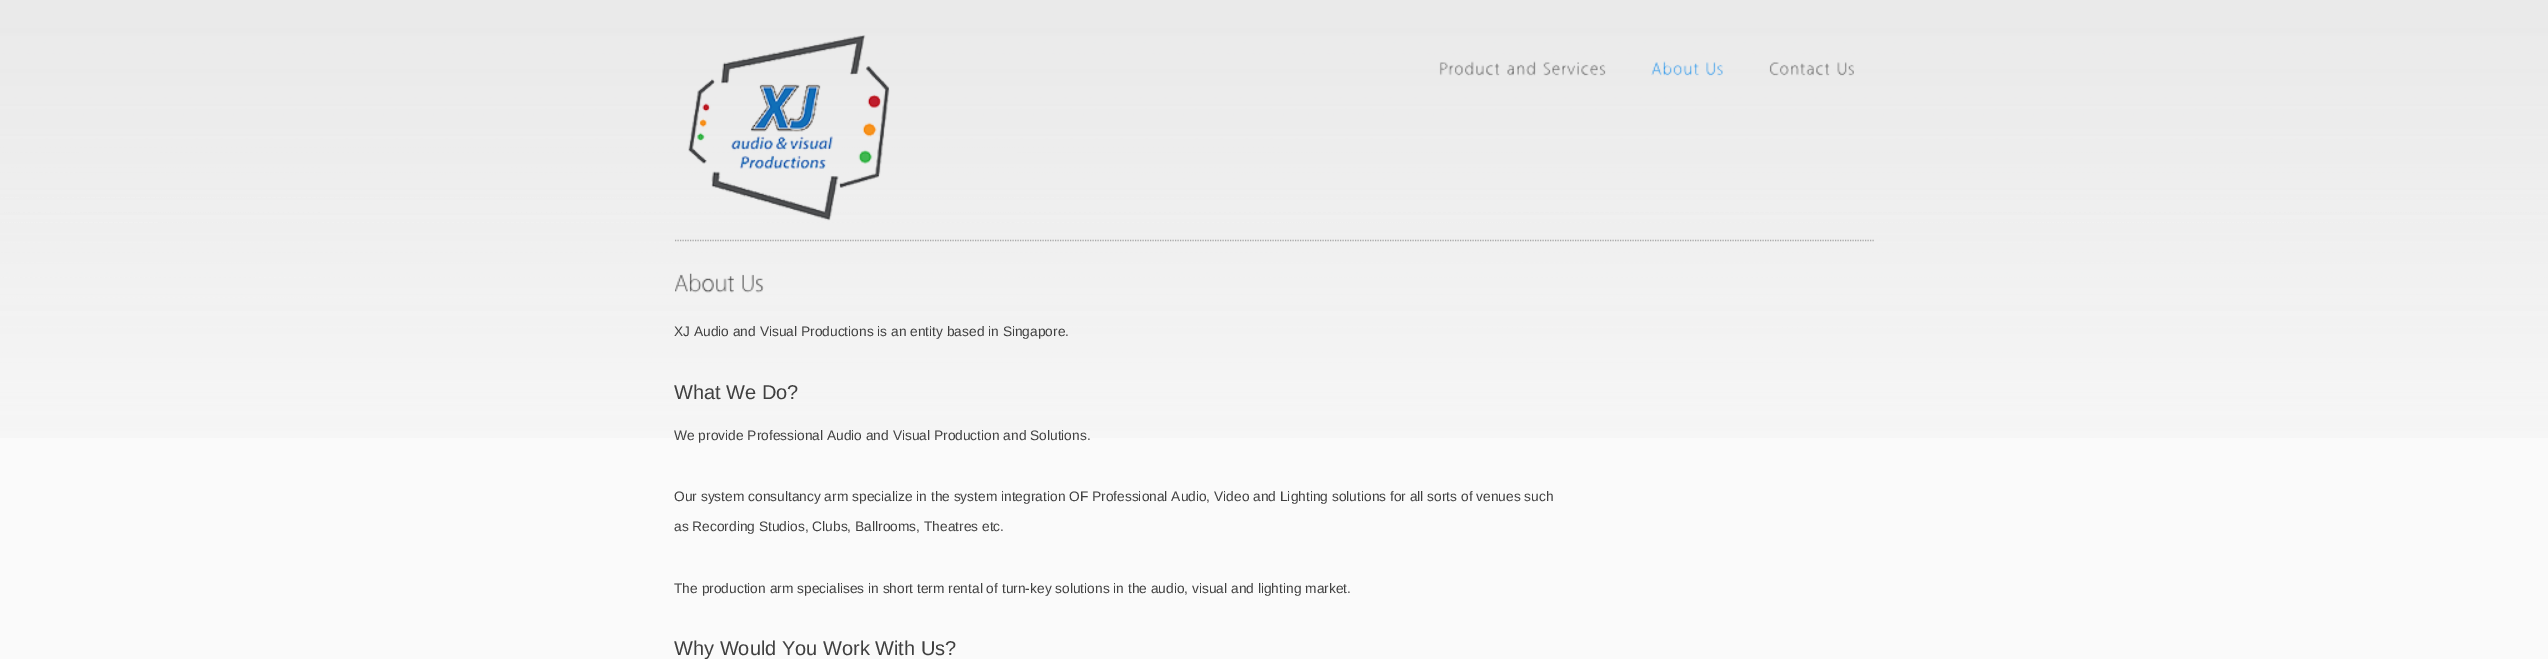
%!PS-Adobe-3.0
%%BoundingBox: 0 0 2548 659
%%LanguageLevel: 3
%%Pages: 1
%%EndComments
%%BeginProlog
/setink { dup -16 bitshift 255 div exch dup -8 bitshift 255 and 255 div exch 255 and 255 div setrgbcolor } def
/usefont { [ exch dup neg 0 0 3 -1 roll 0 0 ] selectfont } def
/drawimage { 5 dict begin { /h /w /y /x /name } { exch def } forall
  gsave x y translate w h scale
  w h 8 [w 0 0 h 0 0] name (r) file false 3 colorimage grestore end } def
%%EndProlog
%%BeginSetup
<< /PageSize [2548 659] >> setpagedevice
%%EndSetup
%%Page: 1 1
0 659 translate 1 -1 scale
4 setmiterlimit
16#FAFAFA setink
0 0 2548 659 rectfill
(img1.raw) 0 0 2548 438 drawimage
16#AAAAAA setink
1.2 setlinewidth
[1.25 1.25] 0 setdash
675 240.5 moveto 1875 240.5 lineto stroke
(img2.raw) 688 35 202 186 drawimage
(img3.raw) 1439 61 61 15 drawimage
(img4.raw) 1507 61 29 15 drawimage
(img5.raw) 1543 62 63 14 drawimage
(img6.raw) 1651 61 48 15 drawimage
(img7.raw) 1706 62 17 14 drawimage
(img8.raw) 1769 62 61 14 drawimage
(img9.raw) 1837 62 17 14 drawimage
(img10.raw) 675 273 59 20 drawimage
(img11.raw) 742 274 22 19 drawimage
/LiberationSans-Regular 13.75 usefont
16#404040 setink
674 336 moveto (XJ Audio and Visual Productions is an entity based in Singapore.) show
/LiberationSans-Regular 20 usefont
674 399 moveto (What We Do?) show
/LiberationSans-Regular 13.75 usefont
[
    [(We provide Professional Audio and Visual Production and Solutions.) 674 440]
    [(Our system consultancy arm specialize in the system integration OF Professional Audio, Video and Lighting solutions for all sorts of venues such) 674 501]
    [(as Recording Studios, Clubs, Ballrooms, Theatres etc.) 674 531]
    [(The production arm specialises in short term rental of turn-key solutions in the audio, visual and lighting market.) 674 593]
] { aload pop moveto show } forall
/LiberationSans-Regular 20 usefont
674 655 moveto (Why Would You Work With Us?) show
showpage
%%EOF
